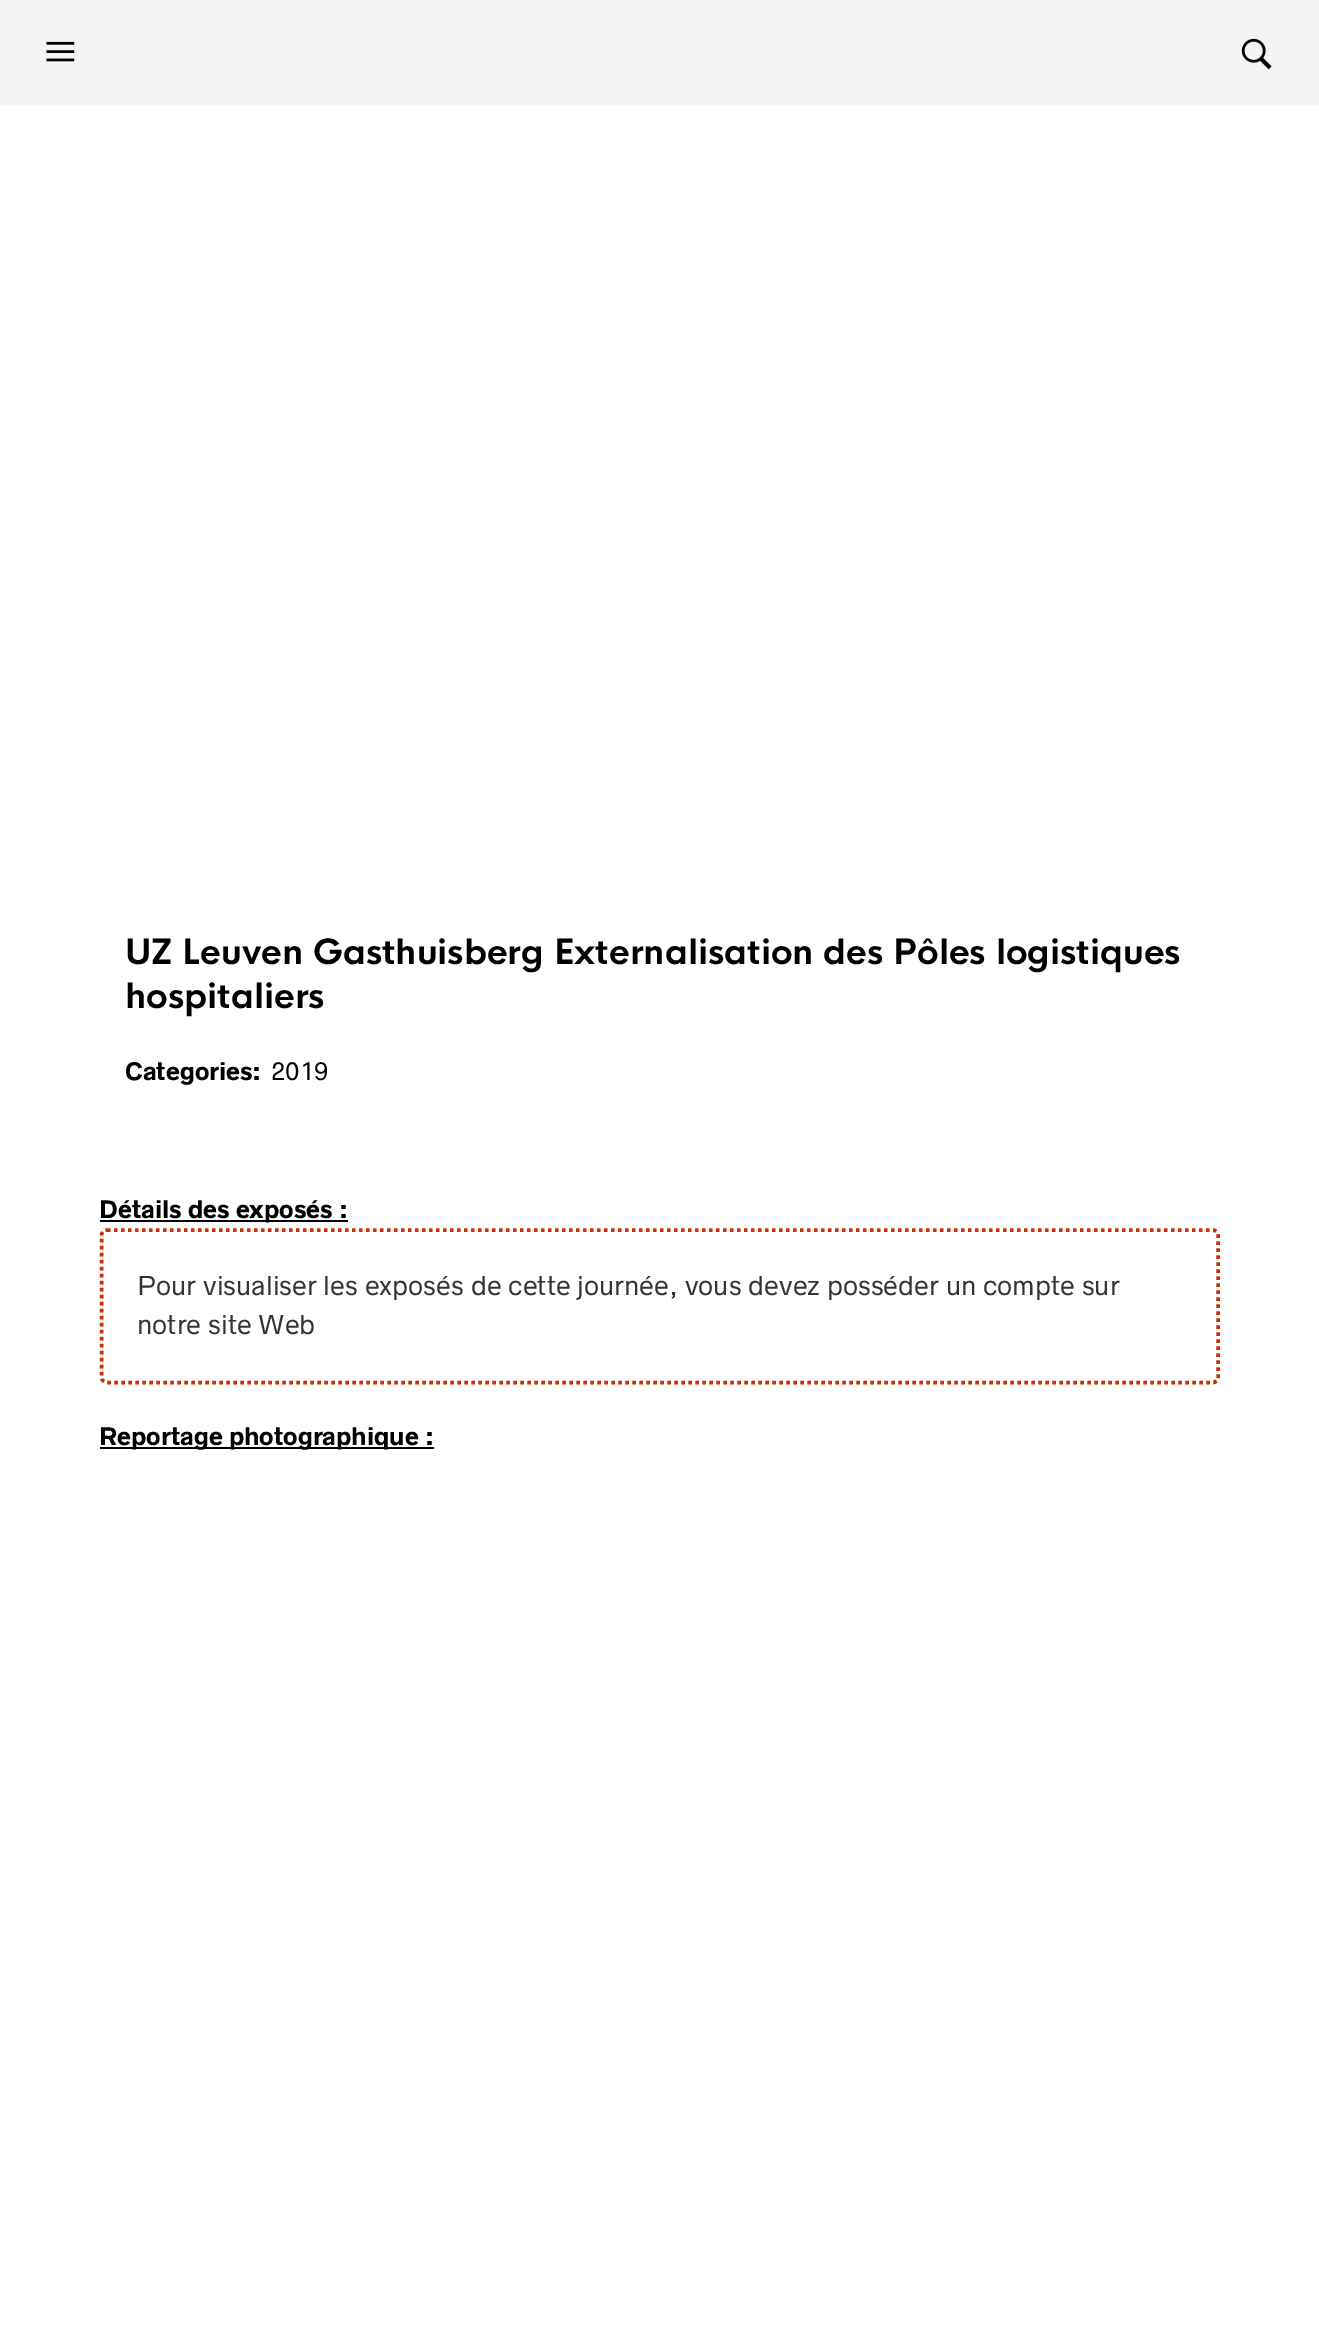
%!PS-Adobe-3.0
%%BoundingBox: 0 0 1319 2339
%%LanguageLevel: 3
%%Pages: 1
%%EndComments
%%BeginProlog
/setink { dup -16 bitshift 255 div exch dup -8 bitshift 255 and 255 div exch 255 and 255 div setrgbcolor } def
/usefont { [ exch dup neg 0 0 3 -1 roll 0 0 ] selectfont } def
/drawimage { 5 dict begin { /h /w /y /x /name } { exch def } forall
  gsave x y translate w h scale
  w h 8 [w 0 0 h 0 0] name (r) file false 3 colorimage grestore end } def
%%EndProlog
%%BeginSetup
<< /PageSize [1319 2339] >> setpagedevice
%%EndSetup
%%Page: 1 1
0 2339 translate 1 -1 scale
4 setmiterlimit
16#FFFFFF setink
0 0 1319 2339 rectfill
16#F4F4F4 setink
0 0 1319 105 rectfill
(img1.raw) 46 41 29 21 drawimage
(img2.raw) 1241 38 31 32 drawimage
/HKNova-Bold 34.1 usefont
16#000000 setink
125 964 moveto (UZ Leuven Gasthuisberg Externalisation des Pôles logistiques) show
125 1008 moveto (hospitaliers) show
/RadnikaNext-Bold 22.75 usefont
125 1080 moveto (Categories:) show
/RadnikaNext-Regular 22.75 usefont
271 1080 moveto (2019) show
100 1220 248 2 rectfill
/RadnikaNext-Bold 22.75 usefont
99 1218 moveto (Détails des exposés :) show
16#CC3000 setink
3.5 setlinewidth
[3.5 3.5] 0 setdash
107 1230 moveto 1213 1230 lineto 1215.5 1230 1218 1232.5 1218 1235.5 curveto 1218 1377 lineto 1218 1380 1215.5 1382.5 1213 1382.5 curveto 107 1382.5 lineto 104 1382.5 101.5 1380 101.5 1377 curveto 101.5 1235.5 lineto 101.5 1232.5 104 1230 107 1230 curveto closepath stroke
/RadnikaNext-Regular 24.5 usefont
16#333333 setink
137 1295 moveto (Pour visualiser les exposés de cette journée, vous devez posséder un compte sur) show
137 1334 moveto (notre site Web) show
16#000000 setink
100 1447 334 2 rectfill
/RadnikaNext-Bold 22.75 usefont
99 1445 moveto (Reportage photographique :) show
showpage
%%EOF
